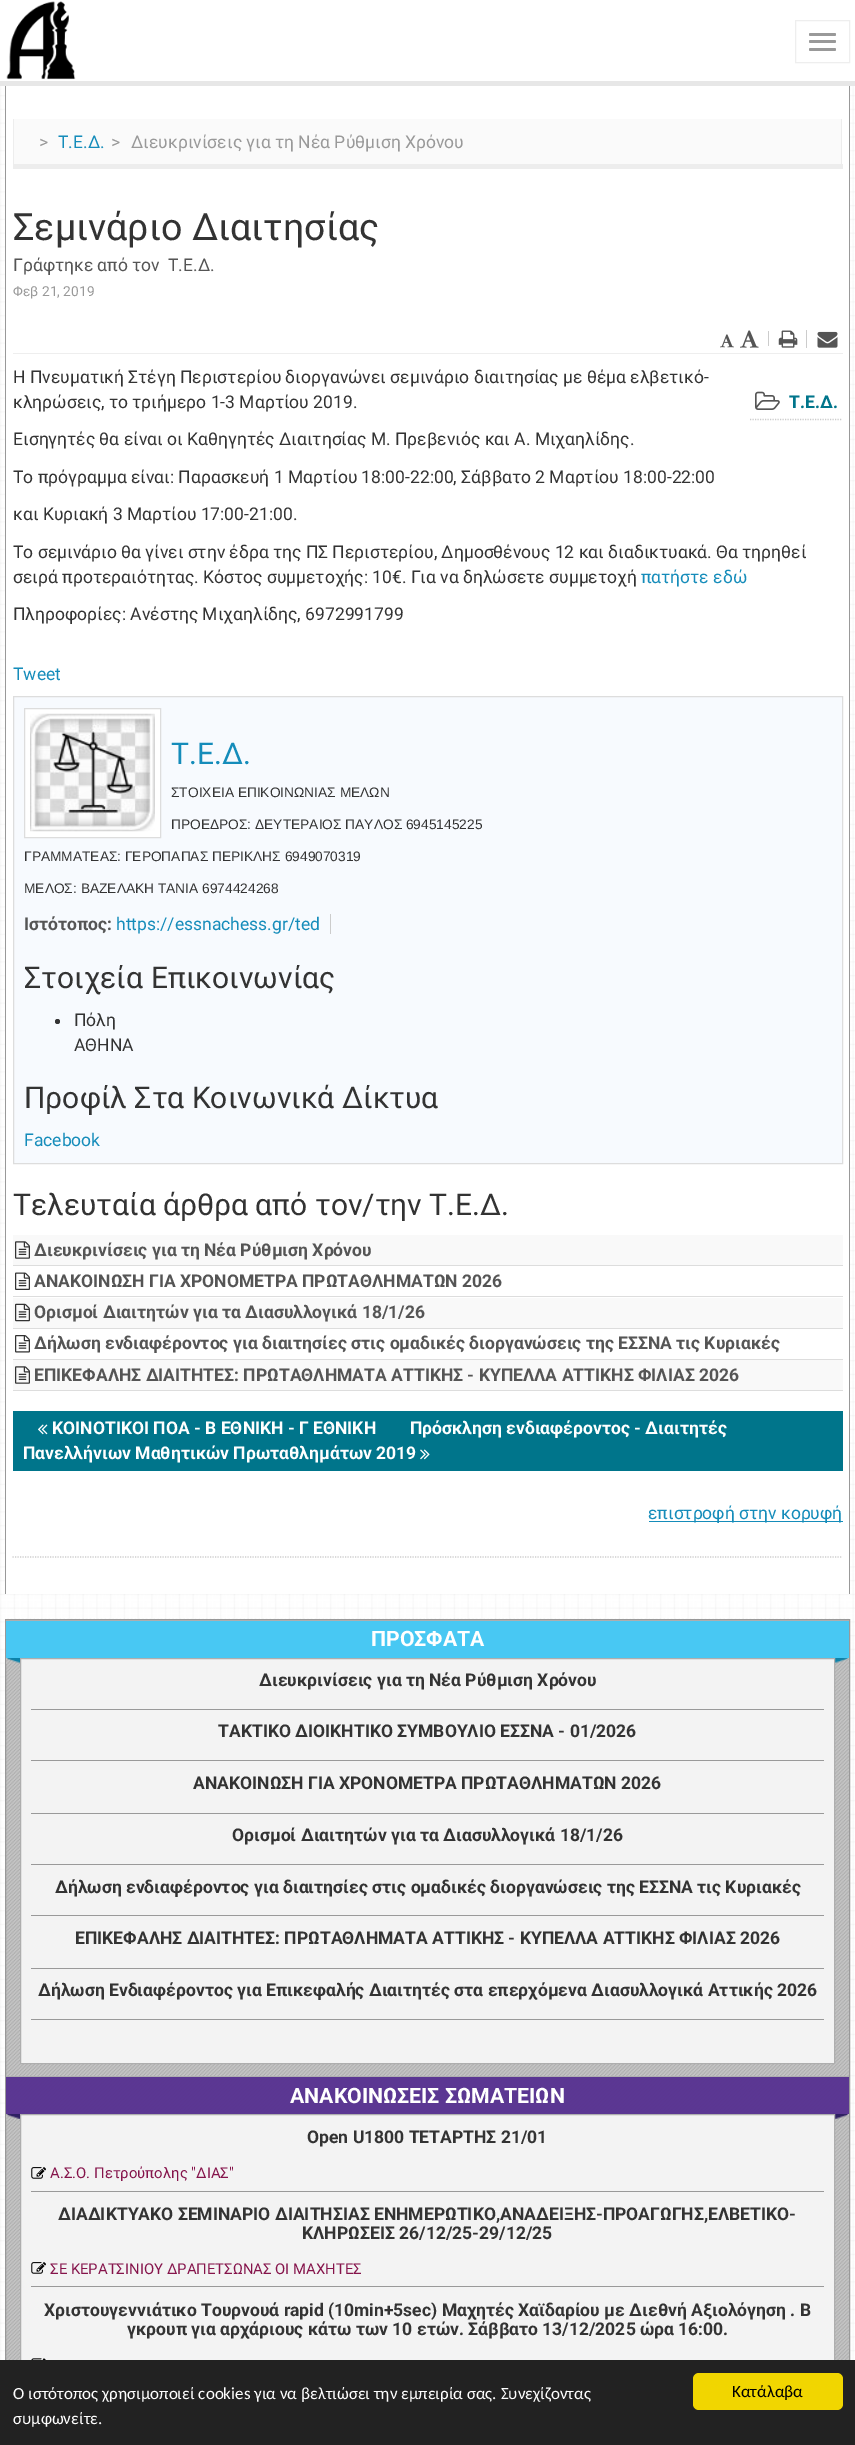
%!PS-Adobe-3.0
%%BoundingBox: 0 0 855 2445
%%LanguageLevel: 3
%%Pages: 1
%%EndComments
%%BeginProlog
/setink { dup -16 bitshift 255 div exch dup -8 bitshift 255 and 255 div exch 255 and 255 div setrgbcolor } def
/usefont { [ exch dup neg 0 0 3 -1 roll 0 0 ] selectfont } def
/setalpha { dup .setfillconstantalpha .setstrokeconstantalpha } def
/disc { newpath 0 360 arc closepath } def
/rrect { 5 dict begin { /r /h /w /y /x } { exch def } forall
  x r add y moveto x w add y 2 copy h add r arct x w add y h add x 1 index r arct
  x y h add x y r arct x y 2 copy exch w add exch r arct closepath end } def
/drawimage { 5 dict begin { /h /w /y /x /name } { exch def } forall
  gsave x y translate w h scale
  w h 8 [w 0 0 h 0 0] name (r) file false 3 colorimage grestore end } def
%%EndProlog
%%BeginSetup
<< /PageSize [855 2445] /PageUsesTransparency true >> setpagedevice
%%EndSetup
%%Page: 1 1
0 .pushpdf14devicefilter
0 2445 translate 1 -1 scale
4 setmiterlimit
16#FFFFFF setink
0 0 855 2445 rectfill
(img2.raw) 0 86 855 2274 drawimage
[
    [849 81 1 1513 16#999999]
    [5 81 1 1513 16#999999]
    [0 81 855 5 16#E7E7E7]
] { aload pop setink rectfill } forall
(img1.raw) 6 1 70 79 drawimage
16#EEEEEE setink
795.5 20.5 54 42 rectstroke
16#999999 setink
809 33 27 3 1.5 rrect fill
809 40 27 3 1.5 rrect fill
809 48 27 3 1.5 rrect fill
[
    [6 86 843 1508 16#FFFFFF]
    [14 119 827 45 16#FAFAFA]
    [841 119 1 50 16#EDEDED]
    [13 164 830 5 16#EDEDED]
    [13 119 1 50 16#EDEDED]
] { aload pop setink rectfill } forall
/Roboto-Regular 17.5 usefont
16#999999 setink
39 148 moveto (>) show
16#158CBA setink
58 148 moveto (Τ.Ε.Δ.) show
16#999999 setink
111 148 moveto (>) show
131 148 moveto (Διευκρινίσεις για τη Νέα Ρύθμιση Χρόνου) show
16#CCCCCC setink
1.2 setlinewidth
[1.25 1.25] 0 setdash
12.5 1557 moveto 842.5 1557 lineto stroke
/Roboto-Regular 37.5 usefont
16#333333 setink
13 240 moveto (Σεμινάριο Διαιτησίας) show
/Roboto-Regular 17.5 usefont
16#555555 setink
13 271 moveto (Γράφτηκε από τον) show
168 271 moveto (Τ.Ε.Δ.) show
/Roboto-Regular 13.75 usefont
16#999999 setink
13 296 moveto (Φεβ 21, 2019) show
16#EEEEEE setink
13 353 830 1 rectfill
(img3.raw) 720 334 14 14 drawimage
(img4.raw) 740 330 19 18 drawimage
16#CCCCCC setink
768 331 1 15 rectfill
(img5.raw) 778 330 20 18 drawimage
806 330 1 18 rectfill
(img6.raw) 817 331 21 17 drawimage
/Roboto-Regular 17.5 usefont
16#333333 setink
[
    [(Η Πνευματική Στέγη Περιστερίου διοργανώνει σεμινάριο διαιτησίας με θέμα ελβετικό-) 13 383]
    [(κληρώσεις, το τριήμερο 1-3 Μαρτίου 2019.) 13 408]
    [(Εισηγητές θα είναι οι Καθηγητές Διαιτησίας Μ. Πρεβενιός και Α. Μιχαηλίδης.) 13 445]
    [(Το πρόγραμμα είναι: Παρασκευή 1 Μαρτίου 18:00-22:00, Σάββατο 2 Μαρτίου 18:00-22:00) 13 483]
    [(και Κυριακή 3 Μαρτίου 17:00-21:00.) 13 520]
    [(Το σεμινάριο θα γίνει στην έδρα της ΠΣ Περιστερίου, Δημοσθένους 12 και διαδικτυακά. Θα τηρηθεί) 13 558]
    [(σειρά προτεραιότητας. Κόστος συμμετοχής: 10€. Για να δηλώσετε συμμετοχή) 13 583]
] { aload pop moveto show } forall
16#158CBA setink
641 583 moveto (πατήστε εδώ) show
16#333333 setink
13 620 moveto (Πληροφορίες: Ανέστης Μιχαηλίδης, 6972991799) show
16#CCCCCC setink
750 419.5 moveto 842.5 419.5 lineto stroke
(img7.raw) 755 391 25 19 drawimage
/Roboto-Bold 17.5 usefont
16#00758B setink
789 408 moveto (Τ.Ε.Δ.) show
/Roboto-Regular 17.5 usefont
16#158CBA setink
13 680 moveto (Tweet) show
16#F7FAFE setink
13.5 696.5 moveto 842.5 696.5 lineto 842.5 1163.5 lineto 13.5 1163.5 lineto closepath gsave fill grestore
16#DDDDDD setink
1 setlinewidth
[] 0 setdash
stroke
16#FFFFFF setink
24.5 708.5 moveto 160.5 708.5 lineto 160.5 837.5 lineto 24.5 837.5 lineto closepath gsave fill grestore
16#DDDDDD setink
stroke
(img8.raw) 30 713 125 119 drawimage
/Roboto-Regular 30 usefont
16#158CBA setink
171 764 moveto (Τ.Ε.Δ.) show
/LiberationSans-Regular 13.75 usefont
16#333333 setink
[
    [(ΣΤΟΙΧΕΙΑ ΕΠΙΚΟΙΝΩΝΙΑΣ ΜΕΛΩΝ) 171 797]
    [(ΠΡΟΕΔΡΟΣ: ΔΕΥΤΕΡΑΙΟΣ ΠΑΥΛΟΣ 6945145225) 171 829]
    [(ΓΡΑΜΜΑΤΕΑΣ: ΓΕΡΟΠΑΠΑΣ ΠΕΡΙΚΛΗΣ 6949070319) 24 861]
    [(ΜΕΛΟΣ: ΒΑΖΕΛΑΚΗ ΤΑΝΙΑ 6974424268) 24 893]
] { aload pop moveto show } forall
/Roboto-Bold 17.5 usefont
16#555555 setink
24 930 moveto (Ιστότοπος:) show
/Roboto-Regular 17.5 usefont
16#158CBA setink
116 930 moveto (https://essnachess.gr/ted) show
16#CCCCCC setink
330 914 1 20 rectfill
/Roboto-Regular 30 usefont
16#333333 setink
24 988 moveto (Στοιχεία Επικοινωνίας) show
57.5 1021.5 2.5 disc fill
/Roboto-Regular 17.5 usefont
74 1026 moveto (Πόλη) show
74 1051 moveto (ΑΘΗΝΑ) show
/Roboto-Regular 30 usefont
24 1108 moveto (Προφίλ Στα Κοινωνικά Δίκτυα) show
/Roboto-Regular 17.5 usefont
16#158CBA setink
24 1146 moveto (Facebook) show
/Roboto-Regular 30 usefont
16#333333 setink
13 1215 moveto (Τελευταία άρθρα από τον/την Τ.Ε.Δ.) show
16#F9F9F9 setink
13 1235 830 30 rectfill
16#DDDDDD setink
13 1265 830 1 rectfill
(img9.raw) 15 1241 15 18 drawimage
/Roboto-Bold 17.5 usefont
16#555555 setink
34 1256 moveto (Διευκρινίσεις για τη Νέα Ρύθμιση Χρόνου) show
16#DDDDDD setink
13 1296 830 1 rectfill
(img10.raw) 15 1272 15 18 drawimage
16#555555 setink
34 1287 moveto (ΑΝΑΚΟΙΝΩΣΗ ΓΙΑ ΧΡΟΝΟΜΕΤΡΑ ΠΡΩΤΑΘΛΗΜΑΤΩΝ 2026) show
16#F9F9F9 setink
13 1298 830 30 rectfill
16#DDDDDD setink
13 1328 830 1 rectfill
(img11.raw) 15 1303 15 19 drawimage
16#555555 setink
34 1318 moveto (Ορισμοί Διαιτητών για τα Διασυλλογικά 18/1/26) show
16#DDDDDD setink
13 1359 830 1 rectfill
(img12.raw) 15 1335 15 18 drawimage
16#555555 setink
34 1349 moveto (Δήλωση ενδιαφέροντος για διαιτησίες στις ομαδικές διοργανώσεις της ΕΣΣΝΑ τις Κυριακές) show
16#F9F9F9 setink
13 1360 830 30 rectfill
16#DDDDDD setink
13 1390 830 1 rectfill
(img9.raw) 15 1366 15 18 drawimage
16#555555 setink
34 1381 moveto (ΕΠΙΚΕΦΑΛΗΣ ΔΙΑΙΤΗΤΕΣ: ΠΡΩΤΑΘΛΗΜΑΤΑ ΑΤΤΙΚΗΣ - ΚΥΠΕΛΛΑ ΑΤΤΙΚΗΣ ΦΙΛΙΑΣ 2026) show
16#00758B setink
13 1411 830 60 rectfill
16#FFFFFF setink
410 1434 moveto (Πρόσκληση ενδιαφέροντος - Διαιτητές) show
23 1459 moveto (Πανελλήνιων Μαθητικών Πρωταθλημάτων 2019) show
(img13.raw) 420 1449 10 11 drawimage
(img14.raw) 38 1424 10 11 drawimage
52 1434 moveto (ΚΟΙΝΟΤΙΚΟΙ ΠΟΑ - Β ΕΘΝΙΚΗ - Γ ΕΘΝΙΚΗ) show
16#158CBA setink
649 1521 194 1 rectfill
/Roboto-Regular 17.5 usefont
648 1519 moveto (επιστροφή στην κορυφή) show
16#C5C5C5 setink
6 1621 843 739 rectfill
(img15.raw) 6 1618 843 742 drawimage
16#999999 setink
5.5 1619.5 844 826 rectstroke
(img16.raw) 6 1657 14 7 drawimage
(img17.raw) 835 1657 13 7 drawimage
0.99 setalpha
16#47C8F4 setink
6 1621 843 37 rectfill
1 setalpha
16#ADAEAF setink
6 1620 843 1 rectfill
/Roboto-Bold 21.25 usefont
16#FFFFFF setink
371 1646 moveto (ΠΡΟΣΦΑΤΑ) show
16#F3F3F3 setink
20.5 1658.5 moveto 834.5 1658.5 lineto 834.5 2063.5 lineto 20.5 2063.5 lineto closepath gsave fill grestore
16#AEAEAE setink
stroke
16#999999 setink
31 1709 793 1 rectfill
/Roboto-Bold 17.5 usefont
16#333333 setink
259 1686 moveto (Διευκρινίσεις για τη Νέα Ρύθμιση Χρόνου) show
16#999999 setink
31 1760 793 1 rectfill
16#333333 setink
218 1737 moveto (ΤΑΚΤΙΚΟ ΔΙΟΙΚΗΤΙΚΟ ΣΥΜΒΟΥΛΙΟ ΕΣΣΝΑ - 01/2026) show
16#999999 setink
31 1813 793 1 rectfill
16#333333 setink
193 1789 moveto (ΑΝΑΚΟΙΝΩΣΗ ΓΙΑ ΧΡΟΝΟΜΕΤΡΑ ΠΡΩΤΑΘΛΗΜΑΤΩΝ 2026) show
16#999999 setink
31 1864 793 1 rectfill
16#333333 setink
232 1841 moveto (Ορισμοί Διαιτητών για τα Διασυλλογικά 18/1/26) show
16#999999 setink
31 1915 793 1 rectfill
16#333333 setink
55 1893 moveto (Δήλωση ενδιαφέροντος για διαιτησίες στις ομαδικές διοργανώσεις της ΕΣΣΝΑ τις Κυριακές) show
16#999999 setink
31 1968 793 1 rectfill
16#333333 setink
75 1944 moveto (ΕΠΙΚΕΦΑΛΗΣ ΔΙΑΙΤΗΤΕΣ: ΠΡΩΤΑΘΛΗΜΑΤΑ ΑΤΤΙΚΗΣ - ΚΥΠΕΛΛΑ ΑΤΤΙΚΗΣ ΦΙΛΙΑΣ 2026) show
16#999999 setink
31 2019 793 1 rectfill
16#333333 setink
38 1996 moveto (Δήλωση Ενδιαφέροντος για Επικεφαλής Διαιτητές στα επερχόμενα Διασυλλογικά Αττικής 2026) show
(img18.raw) 6 2113 14 7 drawimage
(img19.raw) 835 2113 13 7 drawimage
0.99 setalpha
16#5A3592 setink
6 2077 843 37 rectfill
1 setalpha
16#ADADAE setink
6 2076 843 1 rectfill
/Roboto-Bold 21.25 usefont
16#FFFFFF setink
290 2103 moveto (ΑΝΑΚΟΙΝΩΣΕΙΣ ΣΩΜΑΤΕΙΩΝ) show
16#F3F3F3 setink
21 2115 813 245 rectfill
16#AEAEAE setink
20.5 2114.5 814 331 rectstroke
16#999999 setink
31 2191 793 1 rectfill
/Roboto-Bold 17.5 usefont
16#333333 setink
307 2143 moveto (Open U1800 ΤΕΤΑΡΤΗΣ 21/01) show
(img20.raw) 31 2167 15 12 drawimage
/Roboto-Regular 14.9 usefont
16#85144B setink
50 2178 moveto (Α.Σ.Ο. Πετρoύπολης "ΔΙΑΣ") show
16#999999 setink
31 2286 793 1 rectfill
/Roboto-Bold 17.5 usefont
16#333333 setink
58 2220 moveto (ΔΙΑΔΙΚΤΥΑΚΟ ΣΕΜΙΝΑΡΙΟ ΔΙΑΙΤΗΣΙΑΣ ΕΝΗΜΕΡΩΤΙΚΟ,ΑΝΑΔΕΙΞΗΣ-ΠΡΟΑΓΩΓΗΣ,ΕΛΒΕΤΙΚΟ-) show
302 2239 moveto (ΚΛΗΡΩΣΕΙΣ 26/12/25-29/12/25) show
(img20.raw) 31 2262 15 12 drawimage
/Roboto-Regular 14.9 usefont
16#85144B setink
50 2274 moveto (ΣΕ ΚΕΡΑΤΣΙΝΙΟΥ ΔΡΑΠΕΤΣΩΝΑΣ ΟΙ ΜΑΧΗΤΕΣ) show
/Roboto-Bold 17.5 usefont
16#333333 setink
44 2316 moveto (Χριστουγεννιάτικο Τουρνουά rapid \(10min+5sec\) Μαχητές Χαϊδαρίου με Διεθνή Αξιολόγηση . Β) show
127 2335 moveto (γκρουπ για αρχάριους κάτω των 10 ετών. Σάββατο 13/12/2025 ώρα 16:00.) show
(img21.raw) 31 2358 15 2 drawimage
16#222222 setink
0 2360 855 85 rectfill
/Carlito-Regular 17 usefont
16#FFFFFF setink
13 2399 moveto (Ο ιστότοπος χρησιμοποιεί cookies για να βελτιώσει την εμπειρία σας. Συνεχίζοντας) show
13 2424 moveto (συμφωνείτε.) show
16#F1D600 setink
693 2373 150 37 6 rrect fill
16#000000 setink
732 2397 moveto (Κατάλαβα) show
.poppdf14devicefilter showpage
%%EOF
